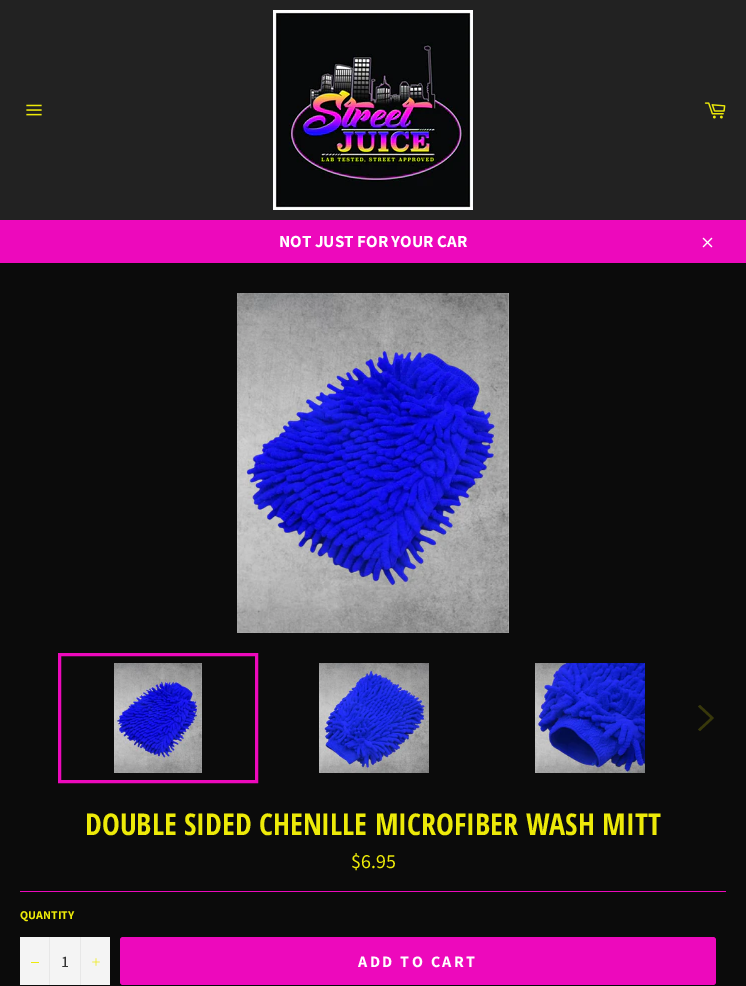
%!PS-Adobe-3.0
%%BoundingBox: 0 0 746 986
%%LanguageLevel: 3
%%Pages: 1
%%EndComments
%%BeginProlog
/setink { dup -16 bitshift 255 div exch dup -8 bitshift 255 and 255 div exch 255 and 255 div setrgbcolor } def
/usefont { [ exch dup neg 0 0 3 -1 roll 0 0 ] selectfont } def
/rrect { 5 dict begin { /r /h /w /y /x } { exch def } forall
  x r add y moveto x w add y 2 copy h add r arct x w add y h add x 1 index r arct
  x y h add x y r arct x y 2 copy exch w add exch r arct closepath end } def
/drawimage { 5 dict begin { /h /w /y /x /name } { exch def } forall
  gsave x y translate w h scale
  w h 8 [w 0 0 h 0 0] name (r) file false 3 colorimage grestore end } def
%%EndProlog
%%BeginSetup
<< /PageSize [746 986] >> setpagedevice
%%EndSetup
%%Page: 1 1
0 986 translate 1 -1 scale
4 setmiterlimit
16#222222 setink
0 0 746 986 rectfill
(img1.raw) 26 104 16 12 drawimage
(img2.raw) 273 10 200 200 drawimage
(img3.raw) 704 102 22 17 drawimage
16#ED09BC setink
0 220 746 43 rectfill
/SourceSansPro-Bold 17 usefont
16#FFFFFF setink
279 247 moveto (NOT JUST FOR YOUR CAR) show
(img4.raw) 702 237 11 11 drawimage
16#0B0B0B setink
0 263 746 723 rectfill
(img5.raw) 237 293 272 340 drawimage
(img6.raw) 114 663 88 110 drawimage
16#ED09BC setink
3 setlinewidth
59.5 654.5 197 127 rectstroke
(img7.raw) 319 663 110 110 drawimage
(img8.raw) 535 663 110 110 drawimage
16#38380B setink
698 706.5 moveto 700 705 lineto 714 718 lineto 700 731 lineto 698 729.5 lineto 710.5 718 lineto closepath fill
/OpenSansCondensed-Bold 30 usefont
16#EDEA09 setink
85 835 moveto (DOUBLE SIDED CHENILLE MICROFIBER WASH MITT) show
/SourceSansPro-Regular 20 usefont
351 868 moveto ($6.95) show
16#ED09BC setink
20 891 706 1 rectfill
/SourceSansPro-Bold 12 usefont
16#EDEA09 setink
20 919 moveto (QUANTITY) show
[
    [20 937 90 48 16#F4F4F4]
    [49 937 1 48 16#E7E7E7]
    [31 962 8 1 16#EDEA09]
] { aload pop setink rectfill } forall
/SourceSansPro-Regular 16 usefont
16#333333 setink
61 967 moveto (1) show
16#E7E7E7 setink
80 937 1 48 rectfill
(img9.raw) 92 958 8 8 drawimage
16#ED09BC setink
120 937 596 48 3 rrect fill
/SourceSansPro-Bold 16 usefont
16#FFFFFF setink
358 967 moveto 2.4 0 (ADD TO CART) ashow
showpage
%%EOF
